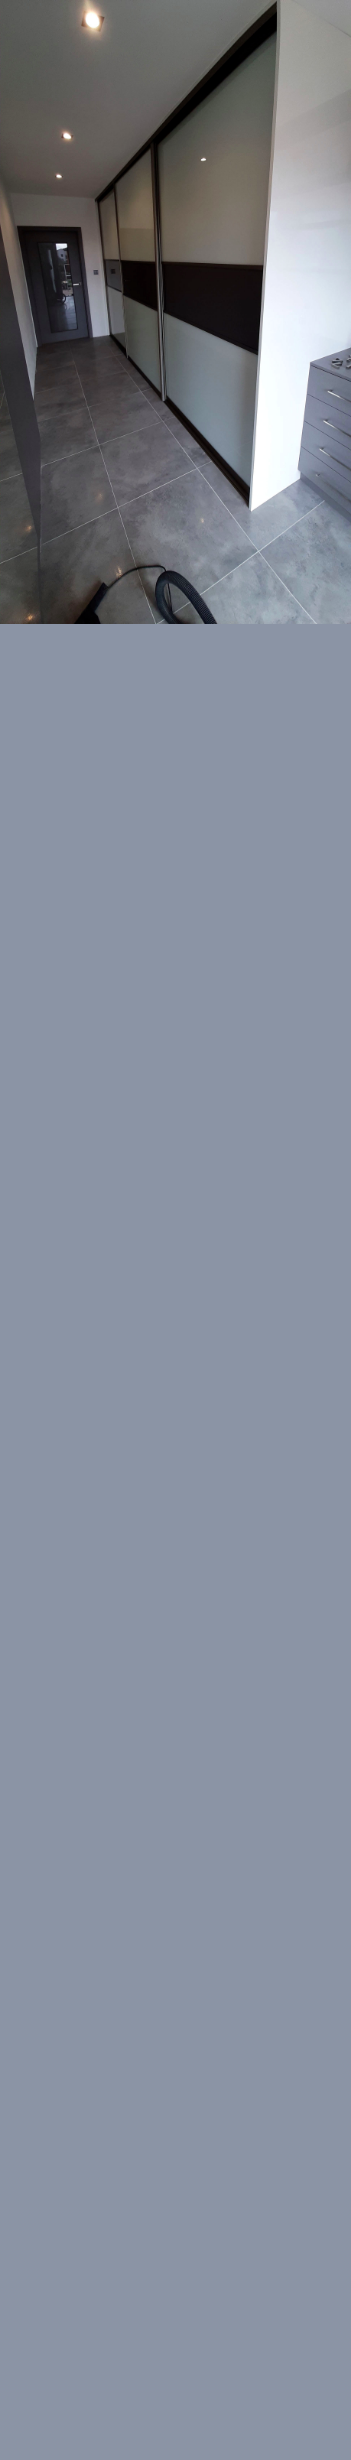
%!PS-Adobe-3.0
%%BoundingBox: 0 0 351 2460
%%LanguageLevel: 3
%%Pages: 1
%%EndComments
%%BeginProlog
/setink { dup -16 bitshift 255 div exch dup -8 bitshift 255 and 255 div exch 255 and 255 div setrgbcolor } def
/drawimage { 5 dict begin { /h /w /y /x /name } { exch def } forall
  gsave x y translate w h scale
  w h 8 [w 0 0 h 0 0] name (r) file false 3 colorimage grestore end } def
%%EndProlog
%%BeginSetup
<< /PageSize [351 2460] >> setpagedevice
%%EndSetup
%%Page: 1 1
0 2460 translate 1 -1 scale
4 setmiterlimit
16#8B94A5 setink
0 0 351 2460 rectfill
(img1.raw) 0 0 351 624 drawimage
showpage
%%EOF
